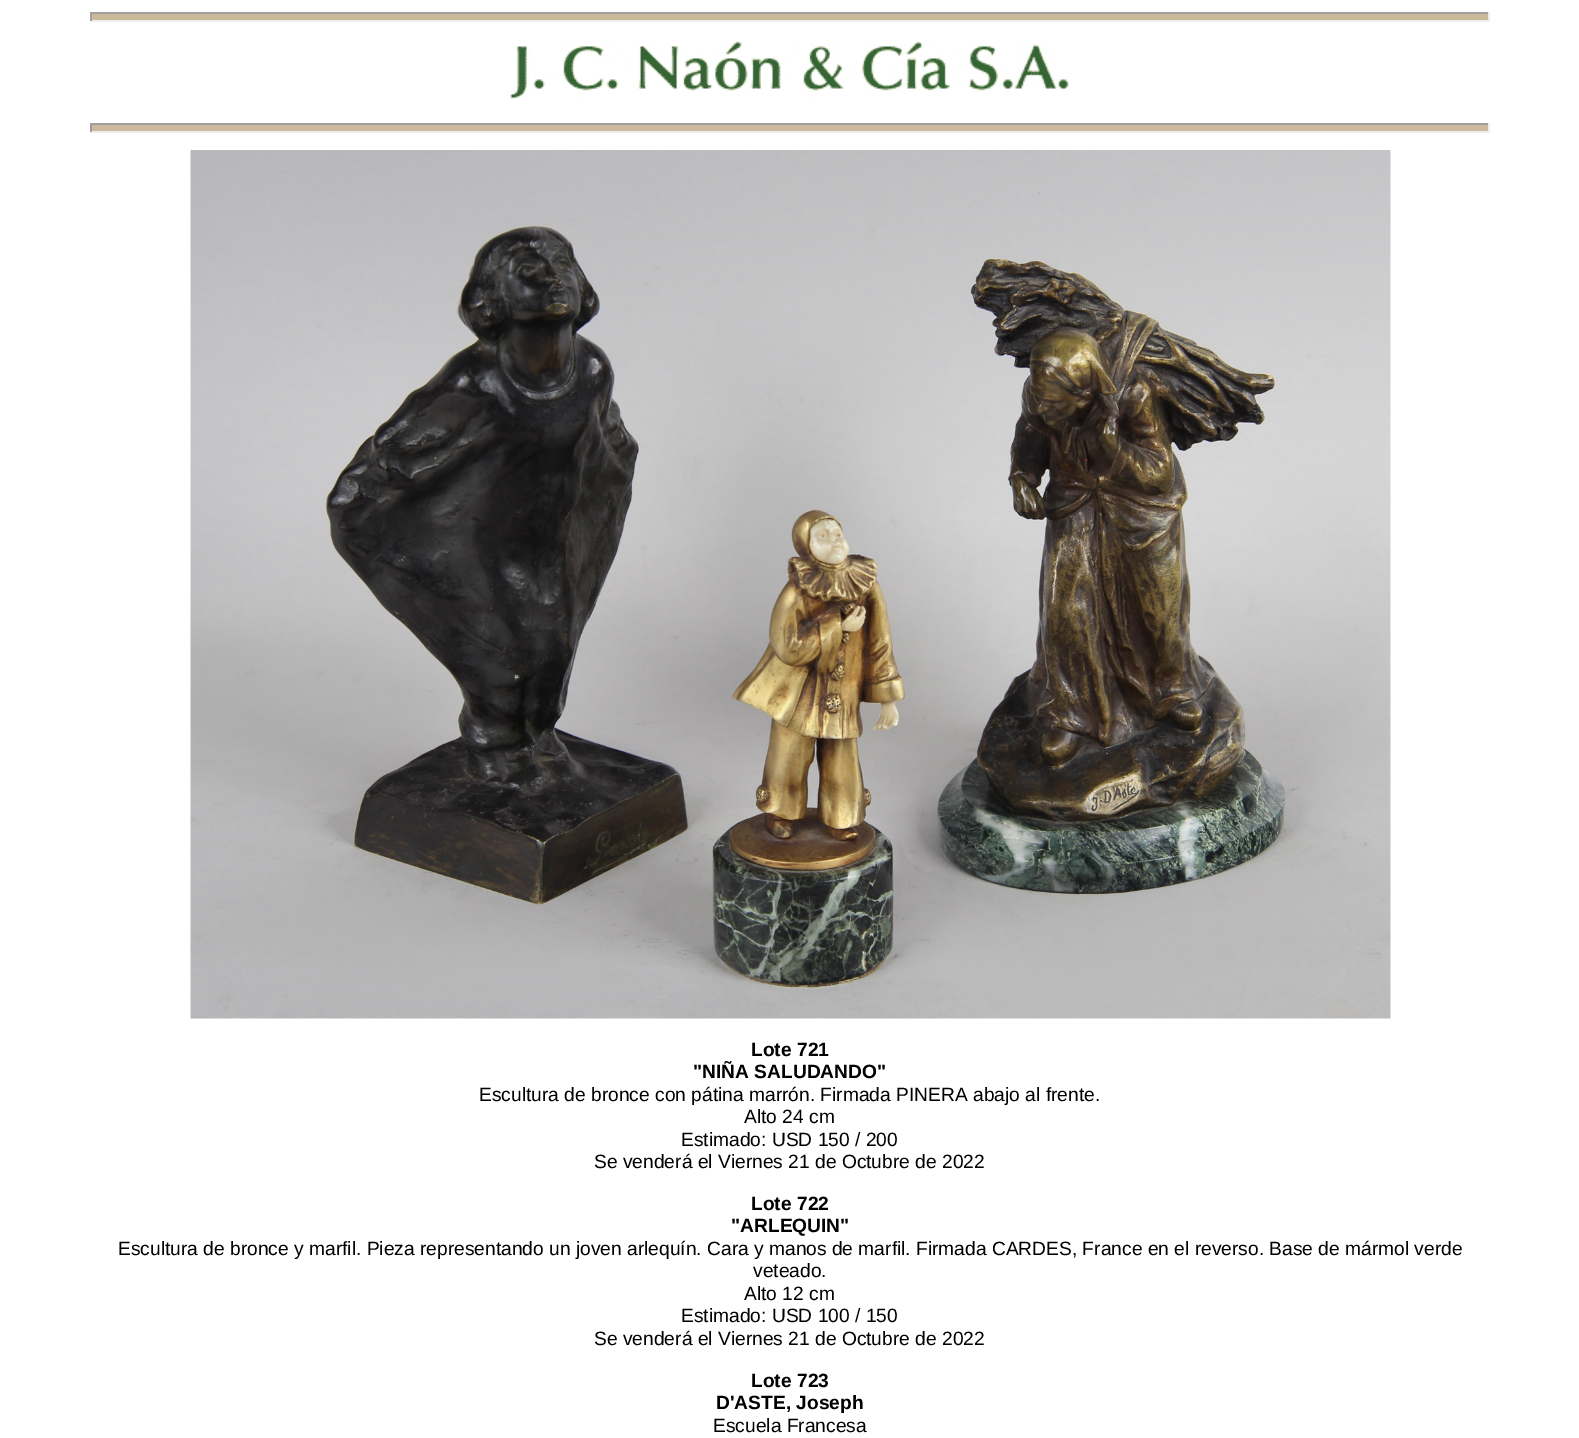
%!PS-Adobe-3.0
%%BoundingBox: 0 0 1579 1438
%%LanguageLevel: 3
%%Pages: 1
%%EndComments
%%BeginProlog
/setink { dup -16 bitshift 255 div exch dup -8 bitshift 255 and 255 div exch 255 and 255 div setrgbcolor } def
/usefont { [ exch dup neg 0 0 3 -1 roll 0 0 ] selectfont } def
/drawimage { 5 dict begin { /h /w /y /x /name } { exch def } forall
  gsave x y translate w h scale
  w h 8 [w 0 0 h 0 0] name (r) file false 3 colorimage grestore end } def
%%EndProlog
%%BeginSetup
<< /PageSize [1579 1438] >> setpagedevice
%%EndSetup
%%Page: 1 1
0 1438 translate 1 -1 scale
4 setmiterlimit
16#FFFFFF setink
0 0 1579 1438 rectfill
[
    [92 14 1396 6 16#CBB99C]
    [90 12 1400 2 16#9F9F9F]
    [1488 12 2 9 16#EEEEEE]
    [90 20 1400 2 16#EEEEEE]
    [90 12 2 9 16#9F9F9F]
] { aload pop setink rectfill } forall
(img1.raw) 509 41 560 59 drawimage
[
    [92 125 1396 6 16#CBB99C]
    [90 123 1400 2 16#9F9F9F]
    [1488 123 2 9 16#EEEEEE]
    [90 131 1400 2 16#EEEEEE]
    [90 123 2 9 16#9F9F9F]
] { aload pop setink rectfill } forall
(img2.raw) 190 150 1201 869 drawimage
/LiberationSans-Bold 19.2 usefont
16#000000 setink
751 1056 moveto (Lote 721) show
693 1078 moveto ("NIÑA SALUDANDO") show
/LiberationSans-Regular 19.2 usefont
[
    [(Escultura de bronce con pátina marrón. Firmada PINERA abajo al frente.) 479 1101]
    [(Alto 24 cm) 744 1123]
    [(Estimado: USD 150 / 200) 681 1146]
    [(Se venderá el Viernes 21 de Octubre de 2022) 594 1168]
] { aload pop moveto show } forall
/LiberationSans-Bold 19.2 usefont
751 1210 moveto (Lote 722) show
731 1232 moveto ("ARLEQUIN") show
/LiberationSans-Regular 19.2 usefont
[
    [(Escultura de bronce y marfil. Pieza representando un joven arlequín. Cara y manos de marfil. Firmada CARDES, France en el reverso. Base de mármol verde) 118 1255]
    [(veteado.) 753 1277]
    [(Alto 12 cm) 744 1300]
    [(Estimado: USD 100 / 150) 681 1322]
    [(Se venderá el Viernes 21 de Octubre de 2022) 594 1345]
] { aload pop moveto show } forall
/LiberationSans-Bold 19.2 usefont
751 1387 moveto (Lote 723) show
716 1409 moveto (D'ASTE, Joseph) show
/LiberationSans-Regular 19.2 usefont
713 1432 moveto (Escuela Francesa) show
showpage
%%EOF
